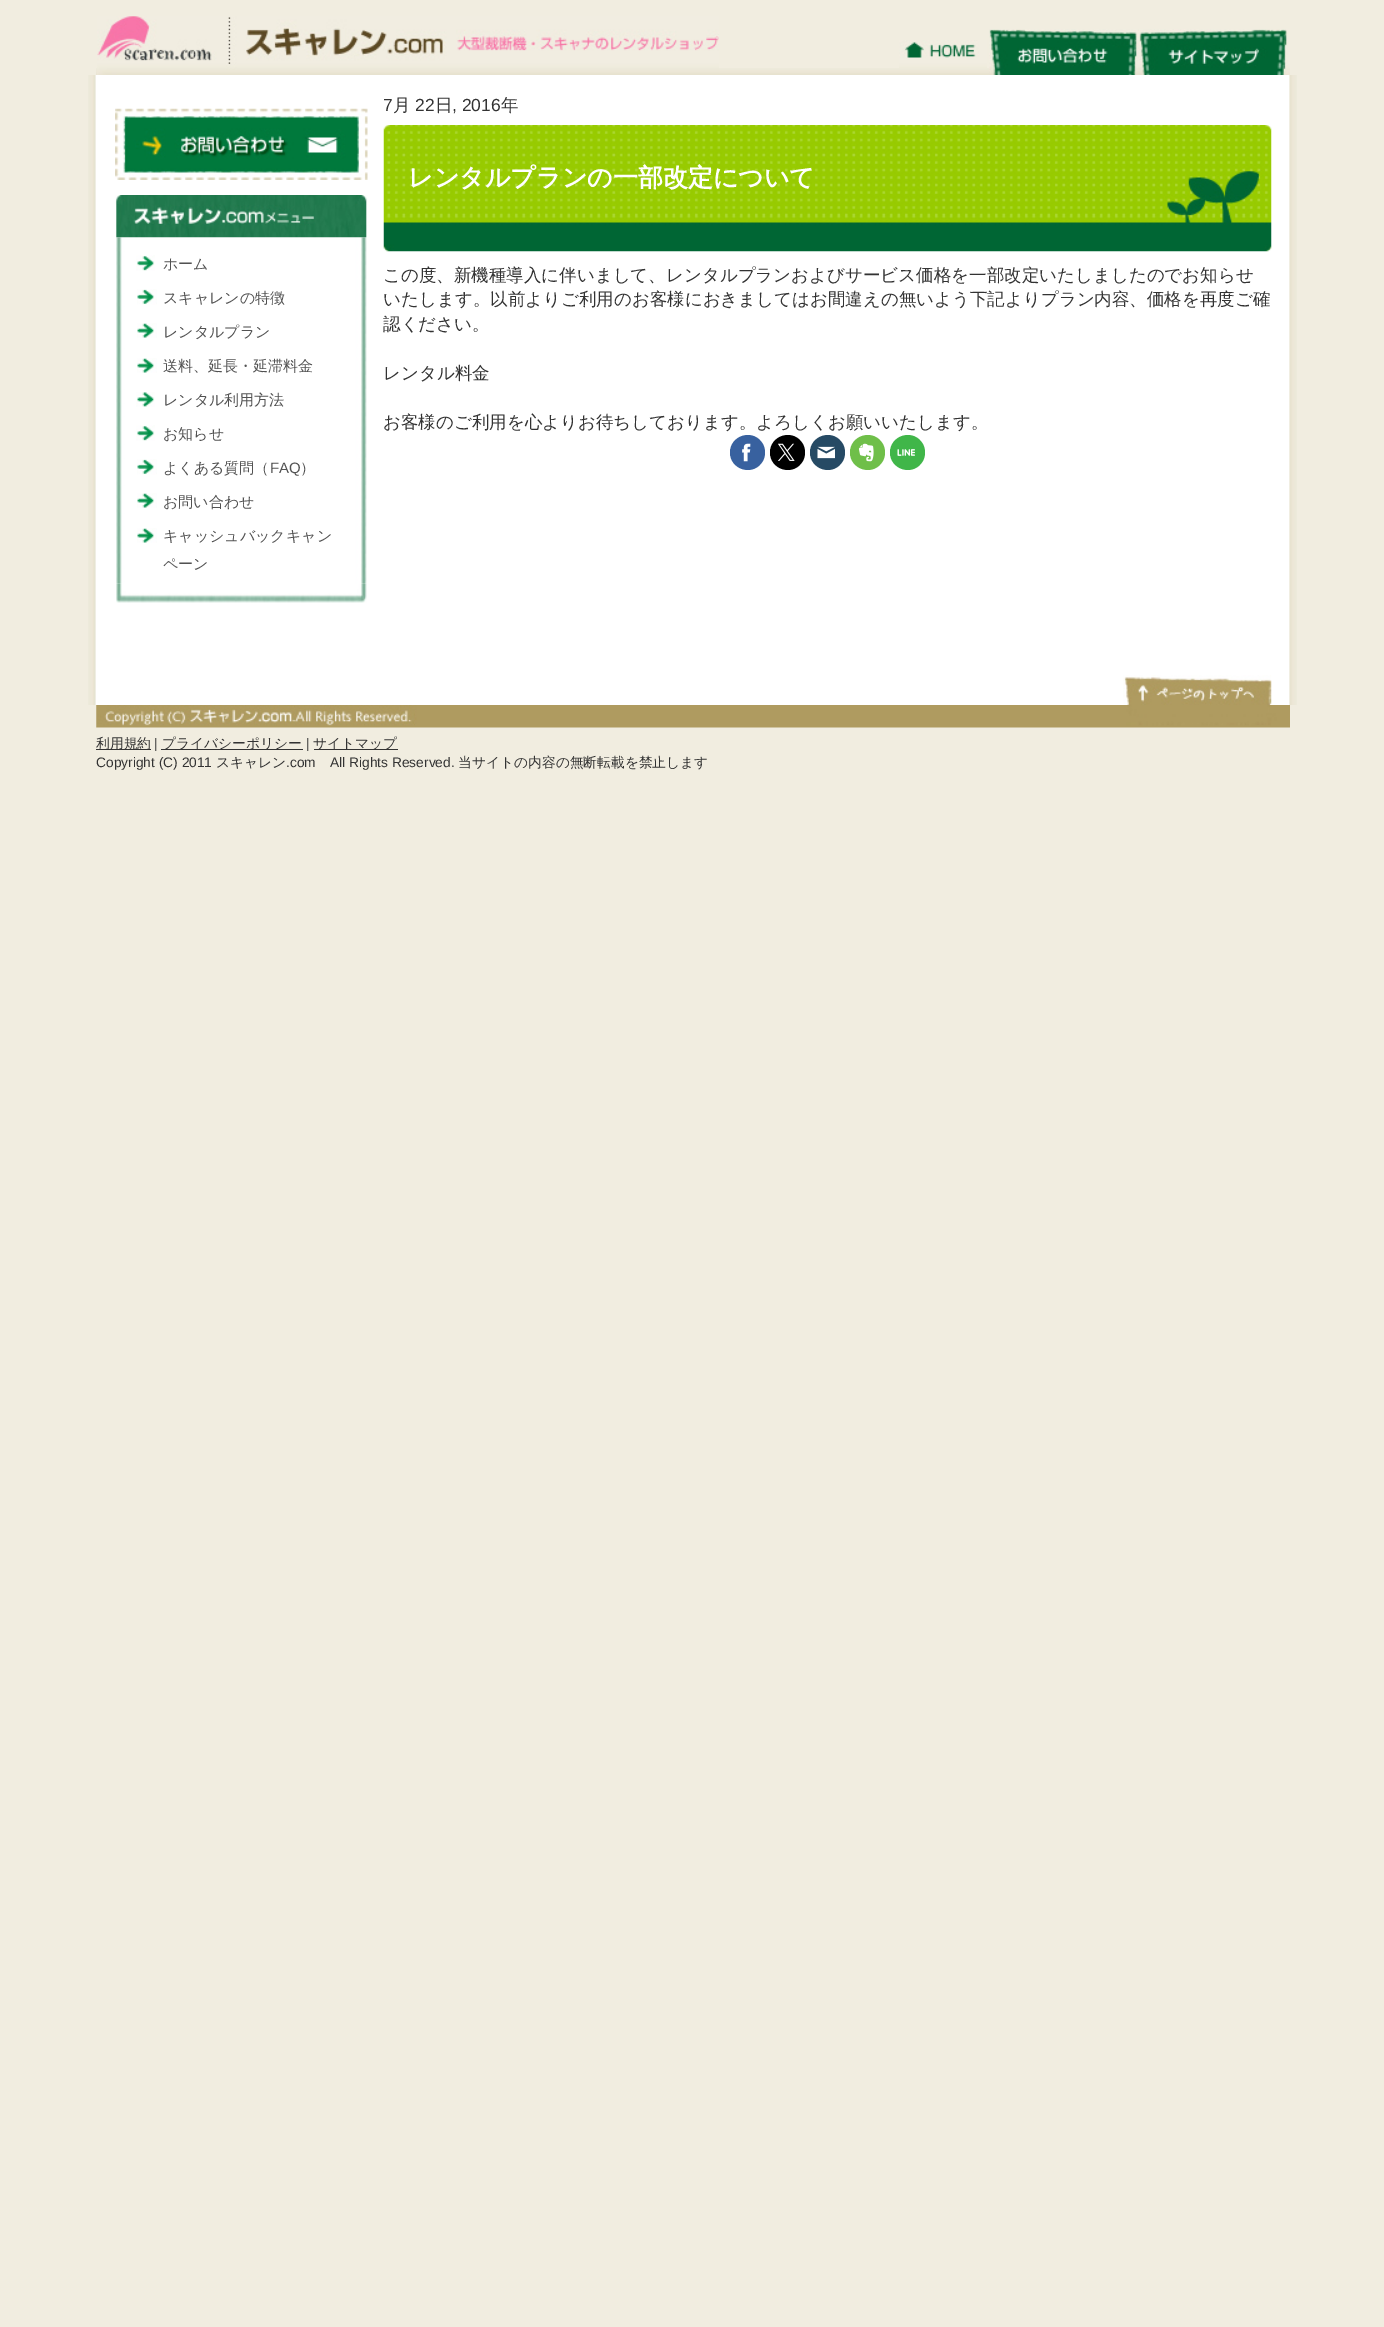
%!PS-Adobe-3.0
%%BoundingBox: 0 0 1384 2327
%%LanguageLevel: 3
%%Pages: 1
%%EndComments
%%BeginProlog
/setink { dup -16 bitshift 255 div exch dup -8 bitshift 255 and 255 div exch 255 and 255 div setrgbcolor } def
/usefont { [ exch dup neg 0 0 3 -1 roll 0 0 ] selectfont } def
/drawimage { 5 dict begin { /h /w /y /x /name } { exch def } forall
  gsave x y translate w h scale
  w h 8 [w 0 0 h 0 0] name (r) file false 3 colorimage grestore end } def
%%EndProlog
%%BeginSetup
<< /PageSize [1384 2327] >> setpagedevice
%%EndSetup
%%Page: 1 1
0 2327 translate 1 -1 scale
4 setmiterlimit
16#F1EDE0 setink
0 0 1384 2327 rectfill
(img1.raw) 96 68 1042 7 drawimage
(img2.raw) 97 16 622 59 drawimage
(img3.raw) 899 40 88 28 drawimage
(img4.raw) 989 29 149 46 drawimage
(img5.raw) 1138 29 152 46 drawimage
(img6.raw) 88 75 1209 630 drawimage
(img7.raw) 115 108 253 72 drawimage
(img8.raw) 115 195 253 43 drawimage
(img9.raw) 116 237 251 347 drawimage
(img10.raw) 136 255 19 16 drawimage
/WenQuanYiZenHei-Medium 15 usefont
16#525252 setink
163 269 moveto (ホーム) show
(img11.raw) 137 289 20 16 drawimage
163 303 moveto (スキャレンの特徴) show
(img12.raw) 137 323 20 15 drawimage
163 337 moveto (レンタルプラン) show
(img12.raw) 137 358 20 15 drawimage
163 371 moveto (送料、延長・延滞料金) show
(img13.raw) 136 392 19 15 drawimage
163 405 moveto (レンタル利用方法) show
(img10.raw) 136 425 19 16 drawimage
163 439 moveto (お知らせ) show
(img14.raw) 137 459 20 16 drawimage
163 473 moveto (よくある質問（) show
/LiberationSans-Regular 15 usefont
270 473 moveto (FAQ) show
/WenQuanYiZenHei-Medium 15 usefont
300 473 moveto (）) show
(img12.raw) 137 493 20 15 drawimage
163 507 moveto (お問い合わせ) show
(img12.raw) 137 528 20 15 drawimage
163 541 moveto (キャッシュバックキャン) show
163 569 moveto (ペーン) show
(img15.raw) 116 583 251 20 drawimage
/LiberationSans-Regular 17.5 usefont
16#333333 setink
383 111 moveto (7) show
/WenQuanYiZenHei-Medium 17.5 usefont
393 111 moveto (月) show
/LiberationSans-Regular 17.5 usefont
415 111 moveto (22) show
/WenQuanYiZenHei-Medium 17.5 usefont
435 111 moveto (日) show
/LiberationSans-Regular 17.5 usefont
452 111 moveto (, 2016) show
/WenQuanYiZenHei-Medium 17.5 usefont
501 111 moveto (年) show
(img16.raw) 383 125 889 127 drawimage
/WenQuanYiZenHei-Bold 25 usefont
16#FFFFFF setink
408 186 moveto (レンタルプランの一部改定について) show
/WenQuanYiZenHei-Medium 17.5 usefont
16#333333 setink
[
    [(この度、新機種導入に伴いまして、レンタルプランおよびサービス価格を一部改定いたしましたのでお知らせ) 383 281]
    [(いたします。以前よりご利用のお客様におきましてはお間違えの無いよう下記よりプラン内容、価格を再度ご確) 383 305]
    [(認ください。) 383 330]
    [(レンタル料金) 383 379]
    [(お客様のご利用を心よりお待ちしております。よろしくお願いいたします。) 383 428]
] { aload pop moveto show } forall
16#38619F setink
730 452.5 moveto 730 469 751.5 476.5 761.5 463 curveto 764 460 765 456 765 452.5 curveto 765 449 764 445 761.5 442 curveto 751.5 428.5 730 436 730 452.5 curveto closepath fill
(img17.raw) 742 443 9 19 drawimage
16#000000 setink
770 452.5 moveto 770 469 791.5 476.5 801.5 463 curveto 804 460 805 456 805 452.5 curveto 805 449 804 445 801.5 442 curveto 791.5 428.5 770 436 770 452.5 curveto closepath fill
(img18.raw) 778 443 17 18 drawimage
16#264A64 setink
810 452.5 moveto 810 469 831.5 476.5 841.5 463 curveto 844 460 845 456 845 452.5 curveto 845 449 844 445 841.5 442 curveto 831.5 428.5 810 436 810 452.5 curveto closepath fill
(img19.raw) 817 446 18 13 drawimage
16#6FBF49 setink
850 452.5 moveto 850 469 871.5 476.5 881.5 463 curveto 884 460 885 456 885 452.5 curveto 885 449 884 445 881.5 442 curveto 871.5 428.5 850 436 850 452.5 curveto closepath fill
(img20.raw) 858 443 16 19 drawimage
16#40B649 setink
890 452.5 moveto 890 469 911.5 476.5 921.5 463 curveto 924 460 925 456 925 452.5 curveto 925 449 924 445 921.5 442 curveto 911.5 428.5 890 436 890 452.5 curveto closepath fill
(img21.raw) 897 449 18 7 drawimage
(img22.raw) 1123 675 149 30 drawimage
(img23.raw) 96 705 1194 23 drawimage
16#333333 setink
96 749 55 1 rectfill
/WenQuanYiZenHei-Medium 13.75 usefont
96 748 moveto (利用規約) show
/LiberationSans-Regular 13.75 usefont
154 748 moveto (|) show
161 749 142 1 rectfill
/WenQuanYiZenHei-Medium 13.75 usefont
162 748 moveto (プライバシーポリシー) show
/LiberationSans-Regular 13.75 usefont
306 748 moveto (|) show
314 749 84 1 rectfill
/WenQuanYiZenHei-Medium 13.75 usefont
313 748 moveto (サイトマップ) show
/LiberationSans-Regular 13.75 usefont
96 767 moveto (Copyright \(C\) 2011) show
/WenQuanYiZenHei-Medium 13.75 usefont
216 767 moveto (スキャレン) show
/LiberationSans-Regular 13.75 usefont
286 767 moveto (.com) show
330 767 moveto (All Rights Reserved.) show
/WenQuanYiZenHei-Medium 13.75 usefont
458 767 moveto (当サイトの内容の無断転載を禁止します) show
showpage
%%EOF
